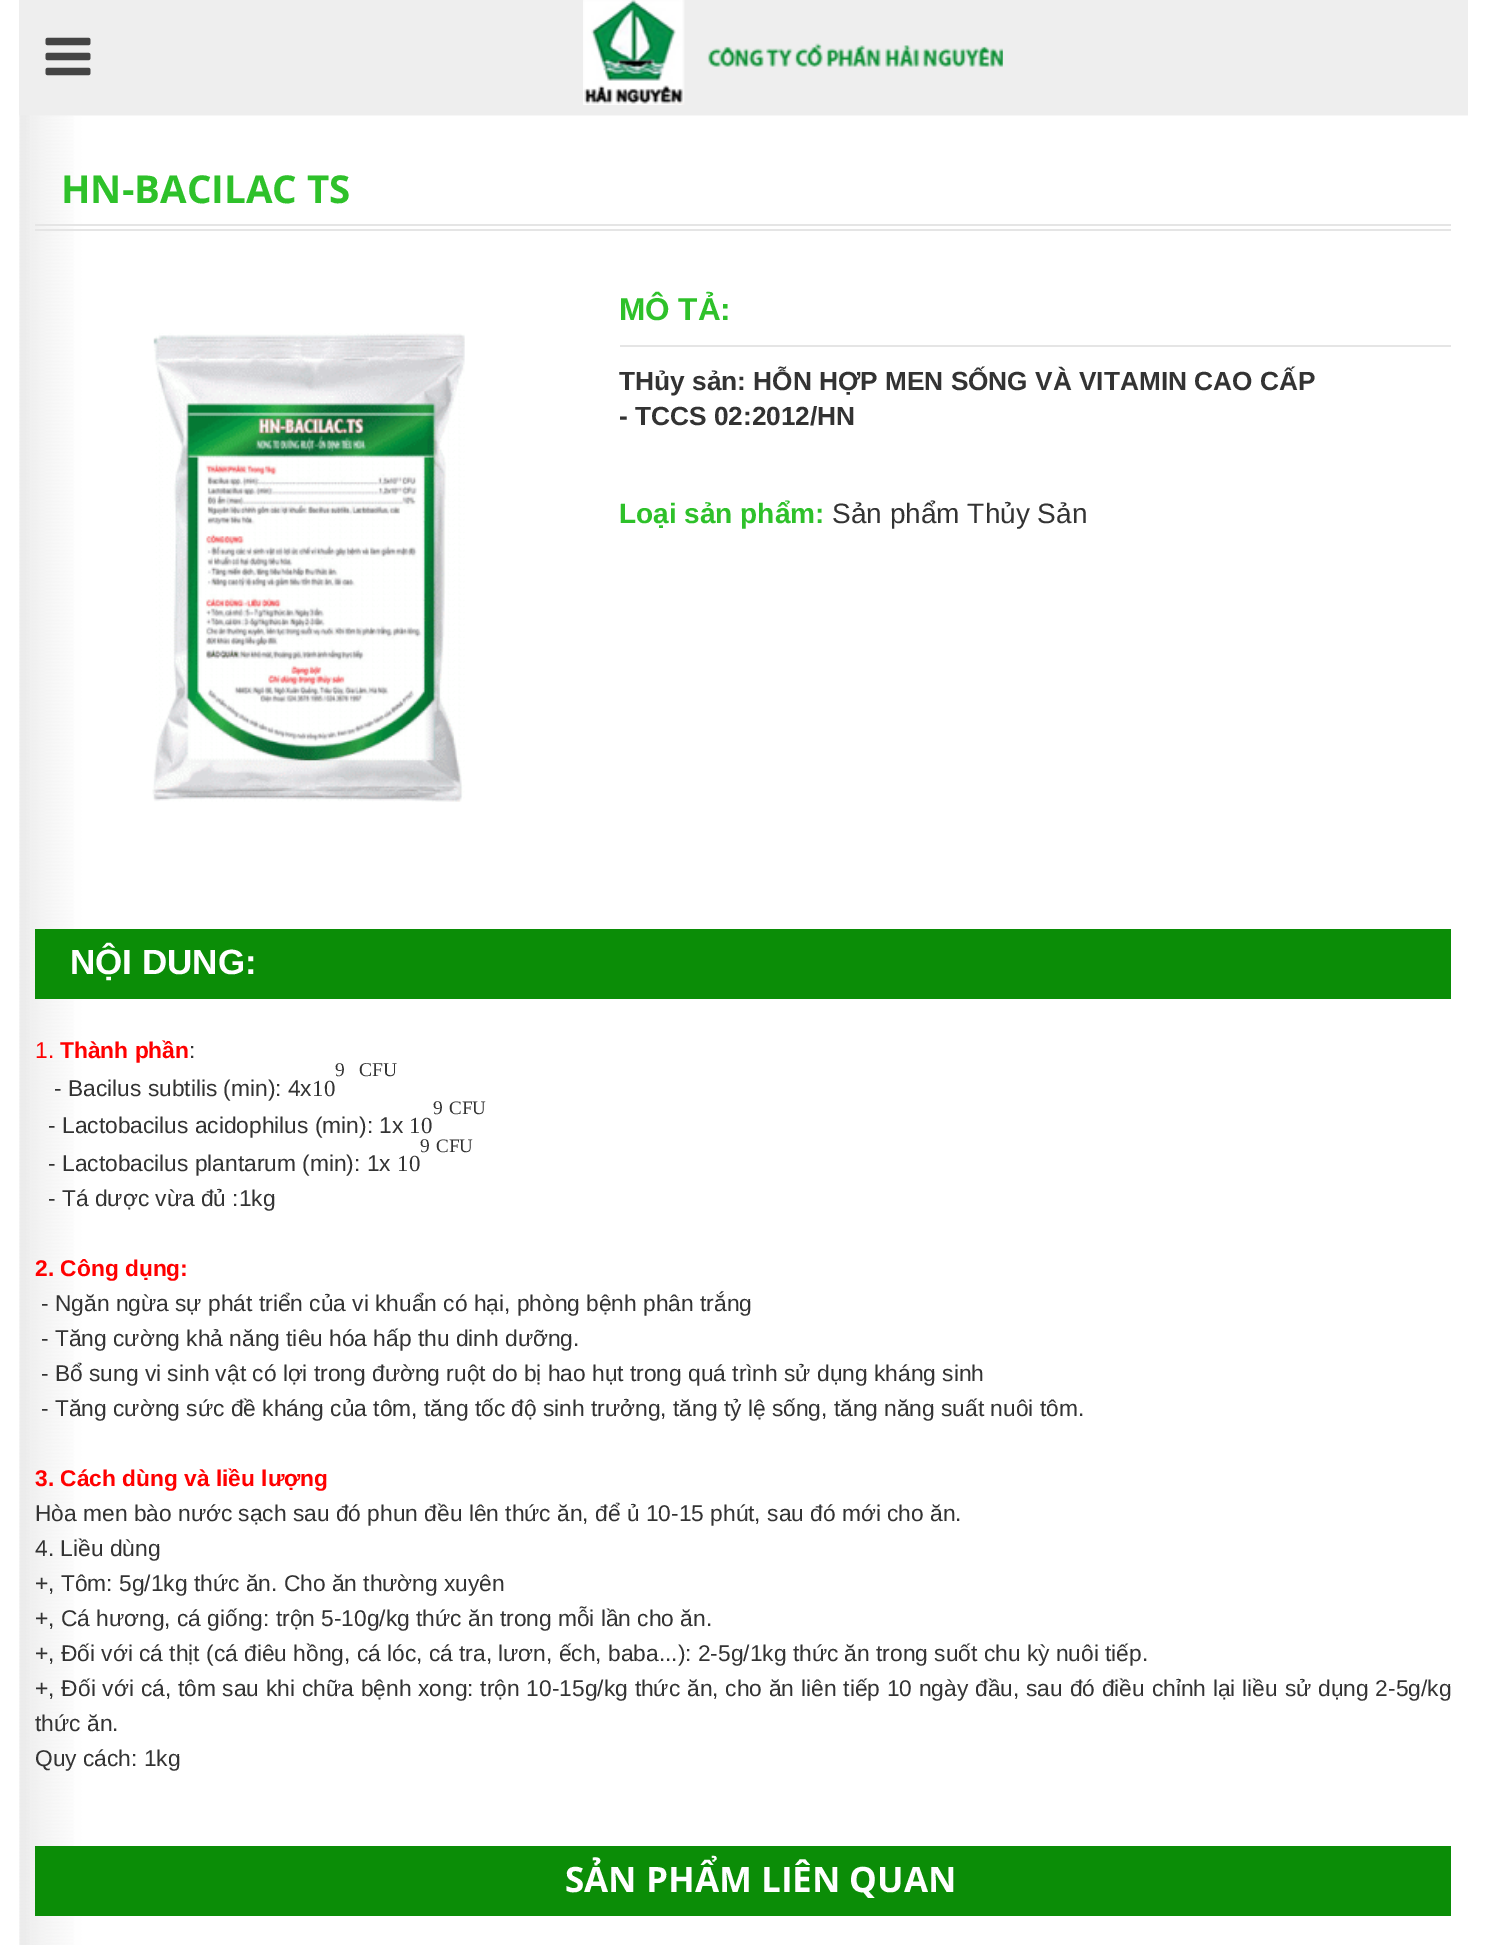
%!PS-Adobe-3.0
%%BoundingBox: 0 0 1485 1945
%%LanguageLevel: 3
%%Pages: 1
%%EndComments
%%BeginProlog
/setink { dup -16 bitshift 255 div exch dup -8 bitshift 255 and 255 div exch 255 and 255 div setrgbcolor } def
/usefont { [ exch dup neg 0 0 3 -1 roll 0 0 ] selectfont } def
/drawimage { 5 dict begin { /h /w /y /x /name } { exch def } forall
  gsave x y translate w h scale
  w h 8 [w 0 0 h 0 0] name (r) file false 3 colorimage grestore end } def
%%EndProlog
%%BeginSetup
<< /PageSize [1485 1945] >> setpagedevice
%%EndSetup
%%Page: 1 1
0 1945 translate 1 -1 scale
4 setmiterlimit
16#FFFFFF setink
0 0 1485 1945 rectfill
16#EEEEEE setink
19 0 1449 116 rectfill
(img1.raw) 45 37 46 39 drawimage
(img2.raw) 583 0 420 105 drawimage
(img3.raw) 19 115 1449 1830 drawimage
16#E5E5E5 setink
35 224 1416 2 rectfill
35 229 1416 2 rectfill
/OpenSans-Bold 38.5 usefont
16#2EC12A setink
61 203 moveto (HN-BACILAC TS) show
(img4.raw) 152 333 313 469 drawimage
16#E5E5E5 setink
620 345 831 2 rectfill
/LiberationSans-Bold 31.5 usefont
16#2EC12A setink
619 320 moveto (MÔ TẢ:) show
/LiberationSans-Bold 26.25 usefont
16#333333 setink
619 390 moveto (THủy sản: HỖN HỢP MEN SỐNG VÀ VITAMIN CAO CẤP) show
619 425 moveto (- TCCS 02:2012/HN) show
/LiberationSans-Bold 28 usefont
16#2EC12A setink
619 523 moveto (Loại sản phẩm:) show
/LiberationSans-Regular 28 usefont
16#333333 setink
832 523 moveto (Sản phẩm Thủy Sản) show
16#0B8D07 setink
35 929 1416 70 rectfill
/LiberationSans-Bold 35 usefont
16#FFFFFF setink
70 974 moveto (NỘI DUNG:) show
/LiberationSans-Regular 22.75 usefont
16#FF0000 setink
35 1058 moveto (1.) show
/LiberationSans-Bold 22.75 usefont
60 1058 moveto (Thành phần) show
/LiberationSans-Regular 22.75 usefont
16#333333 setink
189 1058 moveto (:) show
/LiberationSerif-Regular 19.5 usefont
335 1076 moveto (9   CFU) show
/LiberationSans-Regular 22.75 usefont
54 1096 moveto (- Bacilus subtilis \(min\): 4x) show
/LiberationSerif-Regular 23 usefont
312 1096 moveto (10) show
/LiberationSerif-Regular 19.5 usefont
433 1114 moveto (9) show
/LiberationSerif-Regular 19 usefont
449 1114 moveto (CFU) show
/LiberationSans-Regular 22.75 usefont
48 1133 moveto (- Lactobacilus acidophilus \(min\): 1x) show
/LiberationSerif-Regular 23 usefont
409 1133 moveto (10) show
/LiberationSerif-Regular 19.5 usefont
420 1152 moveto (9) show
/LiberationSerif-Regular 19 usefont
436 1152 moveto (CFU) show
/LiberationSans-Regular 22.75 usefont
48 1171 moveto (- Lactobacilus plantarum \(min\): 1x) show
/LiberationSerif-Regular 23 usefont
397 1171 moveto (10) show
/LiberationSans-Regular 22.75 usefont
48 1206 moveto (- Tá dược vừa đủ :1kg) show
/LiberationSans-Bold 22.75 usefont
16#FF0000 setink
35 1276 moveto (2. Công dụng:) show
/LiberationSans-Regular 22.75 usefont
16#333333 setink
[
    [(- Ngăn ngừa sự phát triển của vi khuẩn có hại, phòng bệnh phân trắng) 41 1311]
    [(- Tăng cường khả năng tiêu hóa hấp thu dinh dưỡng.) 41 1346]
    [(- Bổ sung vi sinh vật có lợi trong đường ruột do bị hao hụt trong quá trình sử dụng kháng sinh) 41 1381]
    [(- Tăng cường sức đề kháng của tôm, tăng tốc độ sinh trưởng, tăng tỷ lệ sống, tăng năng suất nuôi tôm.) 41 1416]
] { aload pop moveto show } forall
/LiberationSans-Bold 22.75 usefont
16#FF0000 setink
35 1486 moveto (3. Cách dùng và liều lượng) show
/LiberationSans-Regular 22.75 usefont
16#333333 setink
[
    [(Hòa men bào nước sạch sau đó phun đều lên thức ăn, để ủ 10-15 phút, sau đó mới cho ăn.) 35 1521]
    [(4. Liều dùng) 35 1556]
    [(+, Tôm: 5g/1kg thức ăn. Cho ăn thường xuyên) 35 1591]
    [(+, Cá hương, cá giống: trộn 5-10g/kg thức ăn trong mỗi lần cho ăn.) 35 1626]
    [(+, Đối với cá thịt \(cá điêu hồng, cá lóc, cá tra, lươn, ếch, baba...\): 2-5g/1kg thức ăn trong suốt chu kỳ nuôi tiếp.) 35 1661]
] { aload pop moveto show } forall
35 1696 moveto 0.5 0 32 (+, Đối với cá, tôm sau khi chữa bệnh xong: trộn 10-15g/kg thức ăn, cho ăn liên tiếp 10 ngày đầu, sau đó điều chỉnh lại liều sử dụng 2-5g/kg) widthshow
35 1731 moveto (thức ăn.) show
35 1766 moveto (Quy cách: 1kg) show
16#0B8D07 setink
35 1846 1416 70 rectfill
/OpenSans-Bold 35 usefont
16#FFFFFF setink
565 1892 moveto (SẢN PHẨM LIÊN QUAN) show
showpage
%%EOF
